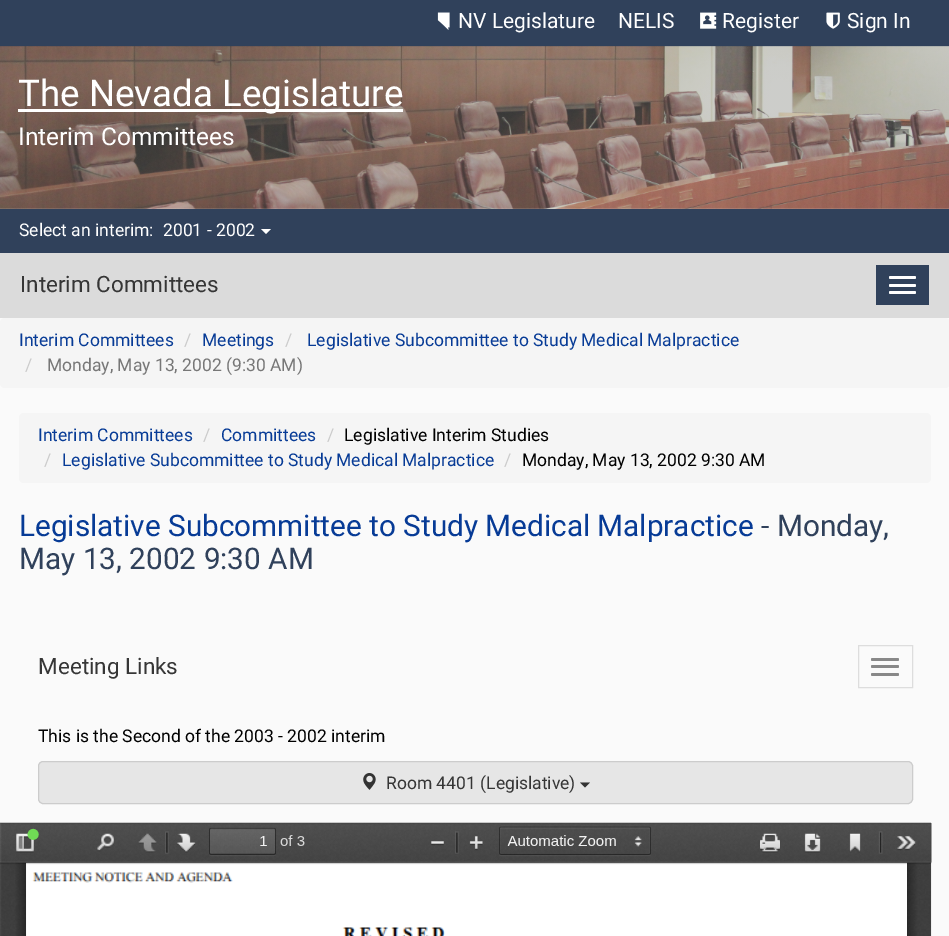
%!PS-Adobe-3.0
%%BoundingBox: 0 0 949 936
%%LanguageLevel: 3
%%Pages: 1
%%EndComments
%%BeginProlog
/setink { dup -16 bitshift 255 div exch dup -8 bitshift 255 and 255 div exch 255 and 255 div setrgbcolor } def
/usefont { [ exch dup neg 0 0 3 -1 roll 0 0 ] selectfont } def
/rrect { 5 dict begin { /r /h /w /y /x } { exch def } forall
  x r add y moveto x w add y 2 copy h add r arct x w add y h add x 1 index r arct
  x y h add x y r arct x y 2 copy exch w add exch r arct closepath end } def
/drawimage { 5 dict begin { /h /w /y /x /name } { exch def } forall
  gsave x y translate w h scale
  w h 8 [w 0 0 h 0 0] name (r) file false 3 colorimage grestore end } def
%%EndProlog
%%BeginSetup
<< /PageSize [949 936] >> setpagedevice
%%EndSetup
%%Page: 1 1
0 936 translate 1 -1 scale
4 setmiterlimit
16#FFFFFF setink
0 0 949 936 rectfill
16#30415B setink
0 0 949 47 rectfill
(img1.raw) 437 12 13 18 drawimage
/Roboto-Regular 21 usefont
16#FFFFFF setink
458 28 moveto (NV Legislature) show
618 28 moveto (NELIS) show
(img2.raw) 700 12 17 17 drawimage
722 28 moveto (Register) show
(img3.raw) 826 12 14 17 drawimage
847 28 moveto (Sign In) show
(img4.raw) 0 46 949 163 drawimage
18 109 385 3 rectfill
/Roboto-Regular 36.75 usefont
18 106 moveto (The Nevada Legislature) show
/Roboto-Regular 24.5 usefont
18 145 moveto (Interim Committees) show
16#30415B setink
0 209 949 44 rectfill
/Roboto-Regular 17.5 usefont
16#FFFFFF setink
19 236 moveto (Select an interim:) show
163 236 moveto (2001 - 2002) show
261 229 moveto 271 229 lineto 266 234 lineto closepath fill
16#DBDBDB setink
0 253 949 65 rectfill
/Roboto-Regular 22.5 usefont
16#363636 setink
20 292 moveto (Interim Committees) show
16#30415B setink
876 265 53 40 rectfill
16#FFFFFF setink
889 276 27 3 1.5 rrect fill
889 284 27 3 1.5 rrect fill
889 291 27 3 1.5 rrect fill
16#FAFAFA setink
0 318 949 618 rectfill
16#F5F5F5 setink
0 318 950 70 5 rrect fill
/Roboto-Regular 17.5 usefont
16#073B96 setink
19 346 moveto (Interim Committees) show
16#CCCCCC setink
184 346 moveto (/) show
16#073B96 setink
202 346 moveto (Meetings) show
16#CCCCCC setink
285 346 moveto (/) show
16#073B96 setink
307 346 moveto (Legislative Subcommittee to Study Medical Malpractice) show
16#CCCCCC setink
25 371 moveto (/) show
16#777777 setink
47 371 moveto (Monday, May 13, 2002 \(9:30 AM\)) show
16#F5F5F5 setink
19 413 912 70 5 rrect fill
16#073B96 setink
38 441 moveto (Interim Committees) show
16#CCCCCC setink
203 441 moveto (/) show
16#073B96 setink
221 441 moveto (Committees) show
16#CCCCCC setink
327 441 moveto (/) show
16#000000 setink
344 441 moveto (Legislative Interim Studies) show
16#CCCCCC setink
44 466 moveto (/) show
16#073B96 setink
62 466 moveto (Legislative Subcommittee to Study Medical Malpractice) show
16#CCCCCC setink
504 466 moveto (/) show
16#000000 setink
522 466 moveto (Monday, May 13, 2002 9:30 AM) show
/Roboto-Regular 29.75 usefont
16#073B96 setink
19 536 moveto (Legislative Subcommittee to Study Medical Malpractice) show
16#30415B setink
761 536 moveto (- Monday,) show
19 569 moveto (May 13, 2002 9:30 AM) show
/Roboto-Regular 22.5 usefont
16#363636 setink
38 674 moveto (Meeting Links) show
16#DDDDDD setink
858.5 645.5 54 42 rectstroke
16#888888 setink
871 658 28 3 1.5 rrect fill
871 665 28 3 1.5 rrect fill
871 673 28 3 1.5 rrect fill
/Roboto-Regular 17.5 usefont
16#000000 setink
38 742 moveto (This is the Second of the 2003 - 2002 interim) show
16#E6E6E6 setink
38.5 761.5 874 42 4.5 rrect gsave fill grestore
16#CCCCCC setink
stroke
(img5.raw) 363 773 13 17 drawimage
16#363636 setink
386 789 moveto (Room 4401 \(Legislative\)) show
16#333333 setink
580 782.5 moveto 590 782.5 lineto 585 787.5 lineto closepath fill
(img6.raw) 0 822 932 114 drawimage
showpage
%%EOF
